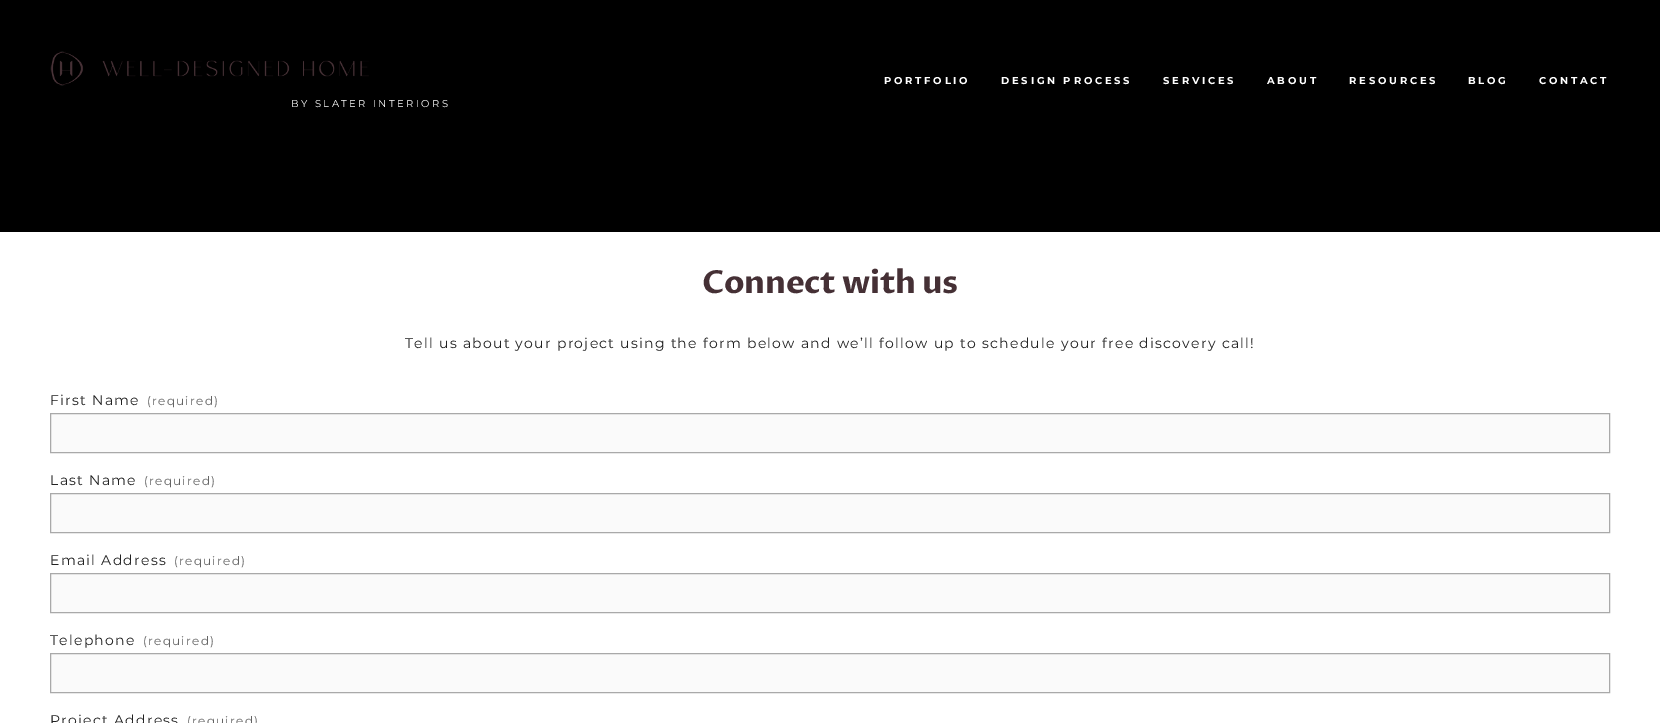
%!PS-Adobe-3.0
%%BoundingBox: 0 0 1660 723
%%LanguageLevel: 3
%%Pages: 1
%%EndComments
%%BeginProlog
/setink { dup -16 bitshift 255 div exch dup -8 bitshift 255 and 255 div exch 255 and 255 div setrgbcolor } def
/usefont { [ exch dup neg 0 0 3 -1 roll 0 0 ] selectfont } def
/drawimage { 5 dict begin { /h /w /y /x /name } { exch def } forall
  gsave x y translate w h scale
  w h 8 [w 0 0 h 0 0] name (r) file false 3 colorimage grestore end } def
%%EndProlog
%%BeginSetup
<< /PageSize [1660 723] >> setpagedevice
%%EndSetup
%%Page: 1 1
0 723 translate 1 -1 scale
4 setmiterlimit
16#000000 setink
0 0 1660 723 rectfill
/Montserrat-Bold 10 usefont
16#FFFFFF setink
884 84 moveto 2.75 0 (PORTFOLIO) ashow
1001 84 moveto 2.75 0 (DESIGN PROCESS) ashow
1163 84 moveto 2.75 0 (SERVICES) ashow
1267 84 moveto 2.75 0 (ABOUT) ashow
1349 84 moveto 2.75 0 (RESOURCES) ashow
1468 84 moveto 2.75 0 (BLOG) ashow
1539 84 moveto 2.75 0 (CONTACT) ashow
(img1.raw) 50 51 319 35 drawimage
/Montserrat-Regular 10 usefont
291 107 moveto 2.4 0 (BY SLATER INTERIORS) ashow
0 232 1660 491 rectfill
/ProzaLibre-Bold 31.75 usefont
16#453035 setink
702 293 moveto -0.3 0 (Connect with us) ashow
/Montserrat-Regular 14 usefont
16#212121 setink
405 348 moveto 1.26 0 (Tell us about your project using the form below and we’ll follow up to schedule your free discovery call!) ashow
50 405 moveto 1.26 0 (First Name) ashow
/Montserrat-Regular 12 usefont
16#646464 setink
147 405 moveto 1.26 0 (\(required\)) ashow
16#FAFAFA setink
50.5 413.5 moveto 1609.5 413.5 lineto 1609.5 452.5 lineto 50.5 452.5 lineto closepath gsave fill grestore
16#A9A9A9 setink
stroke
/Montserrat-Regular 14 usefont
16#212121 setink
50 485 moveto 1.26 0 (Last Name) ashow
/Montserrat-Regular 12 usefont
16#646464 setink
144 485 moveto 1.26 0 (\(required\)) ashow
16#FAFAFA setink
50.5 493.5 moveto 1609.5 493.5 lineto 1609.5 532.5 lineto 50.5 532.5 lineto closepath gsave fill grestore
16#A9A9A9 setink
stroke
/Montserrat-Regular 14 usefont
16#212121 setink
50 565 moveto 1.26 0 (Email Address) ashow
/Montserrat-Regular 12 usefont
16#646464 setink
174 565 moveto 1.26 0 (\(required\)) ashow
16#FAFAFA setink
50.5 573.5 moveto 1609.5 573.5 lineto 1609.5 612.5 lineto 50.5 612.5 lineto closepath gsave fill grestore
16#A9A9A9 setink
stroke
/Montserrat-Regular 14 usefont
16#212121 setink
50 645 moveto 1.26 0 (Telephone) ashow
/Montserrat-Regular 12 usefont
16#646464 setink
143 645 moveto 1.26 0 (\(required\)) ashow
16#FAFAFA setink
50.5 653.5 moveto 1609.5 653.5 lineto 1609.5 692.5 lineto 50.5 692.5 lineto closepath gsave fill grestore
16#A9A9A9 setink
stroke
/Montserrat-Regular 14 usefont
16#212121 setink
50 725 moveto 1.26 0 (Project Address) ashow
/Montserrat-Regular 12 usefont
16#646464 setink
187 725 moveto 1.26 0 (\(required\)) ashow
showpage
%%EOF
